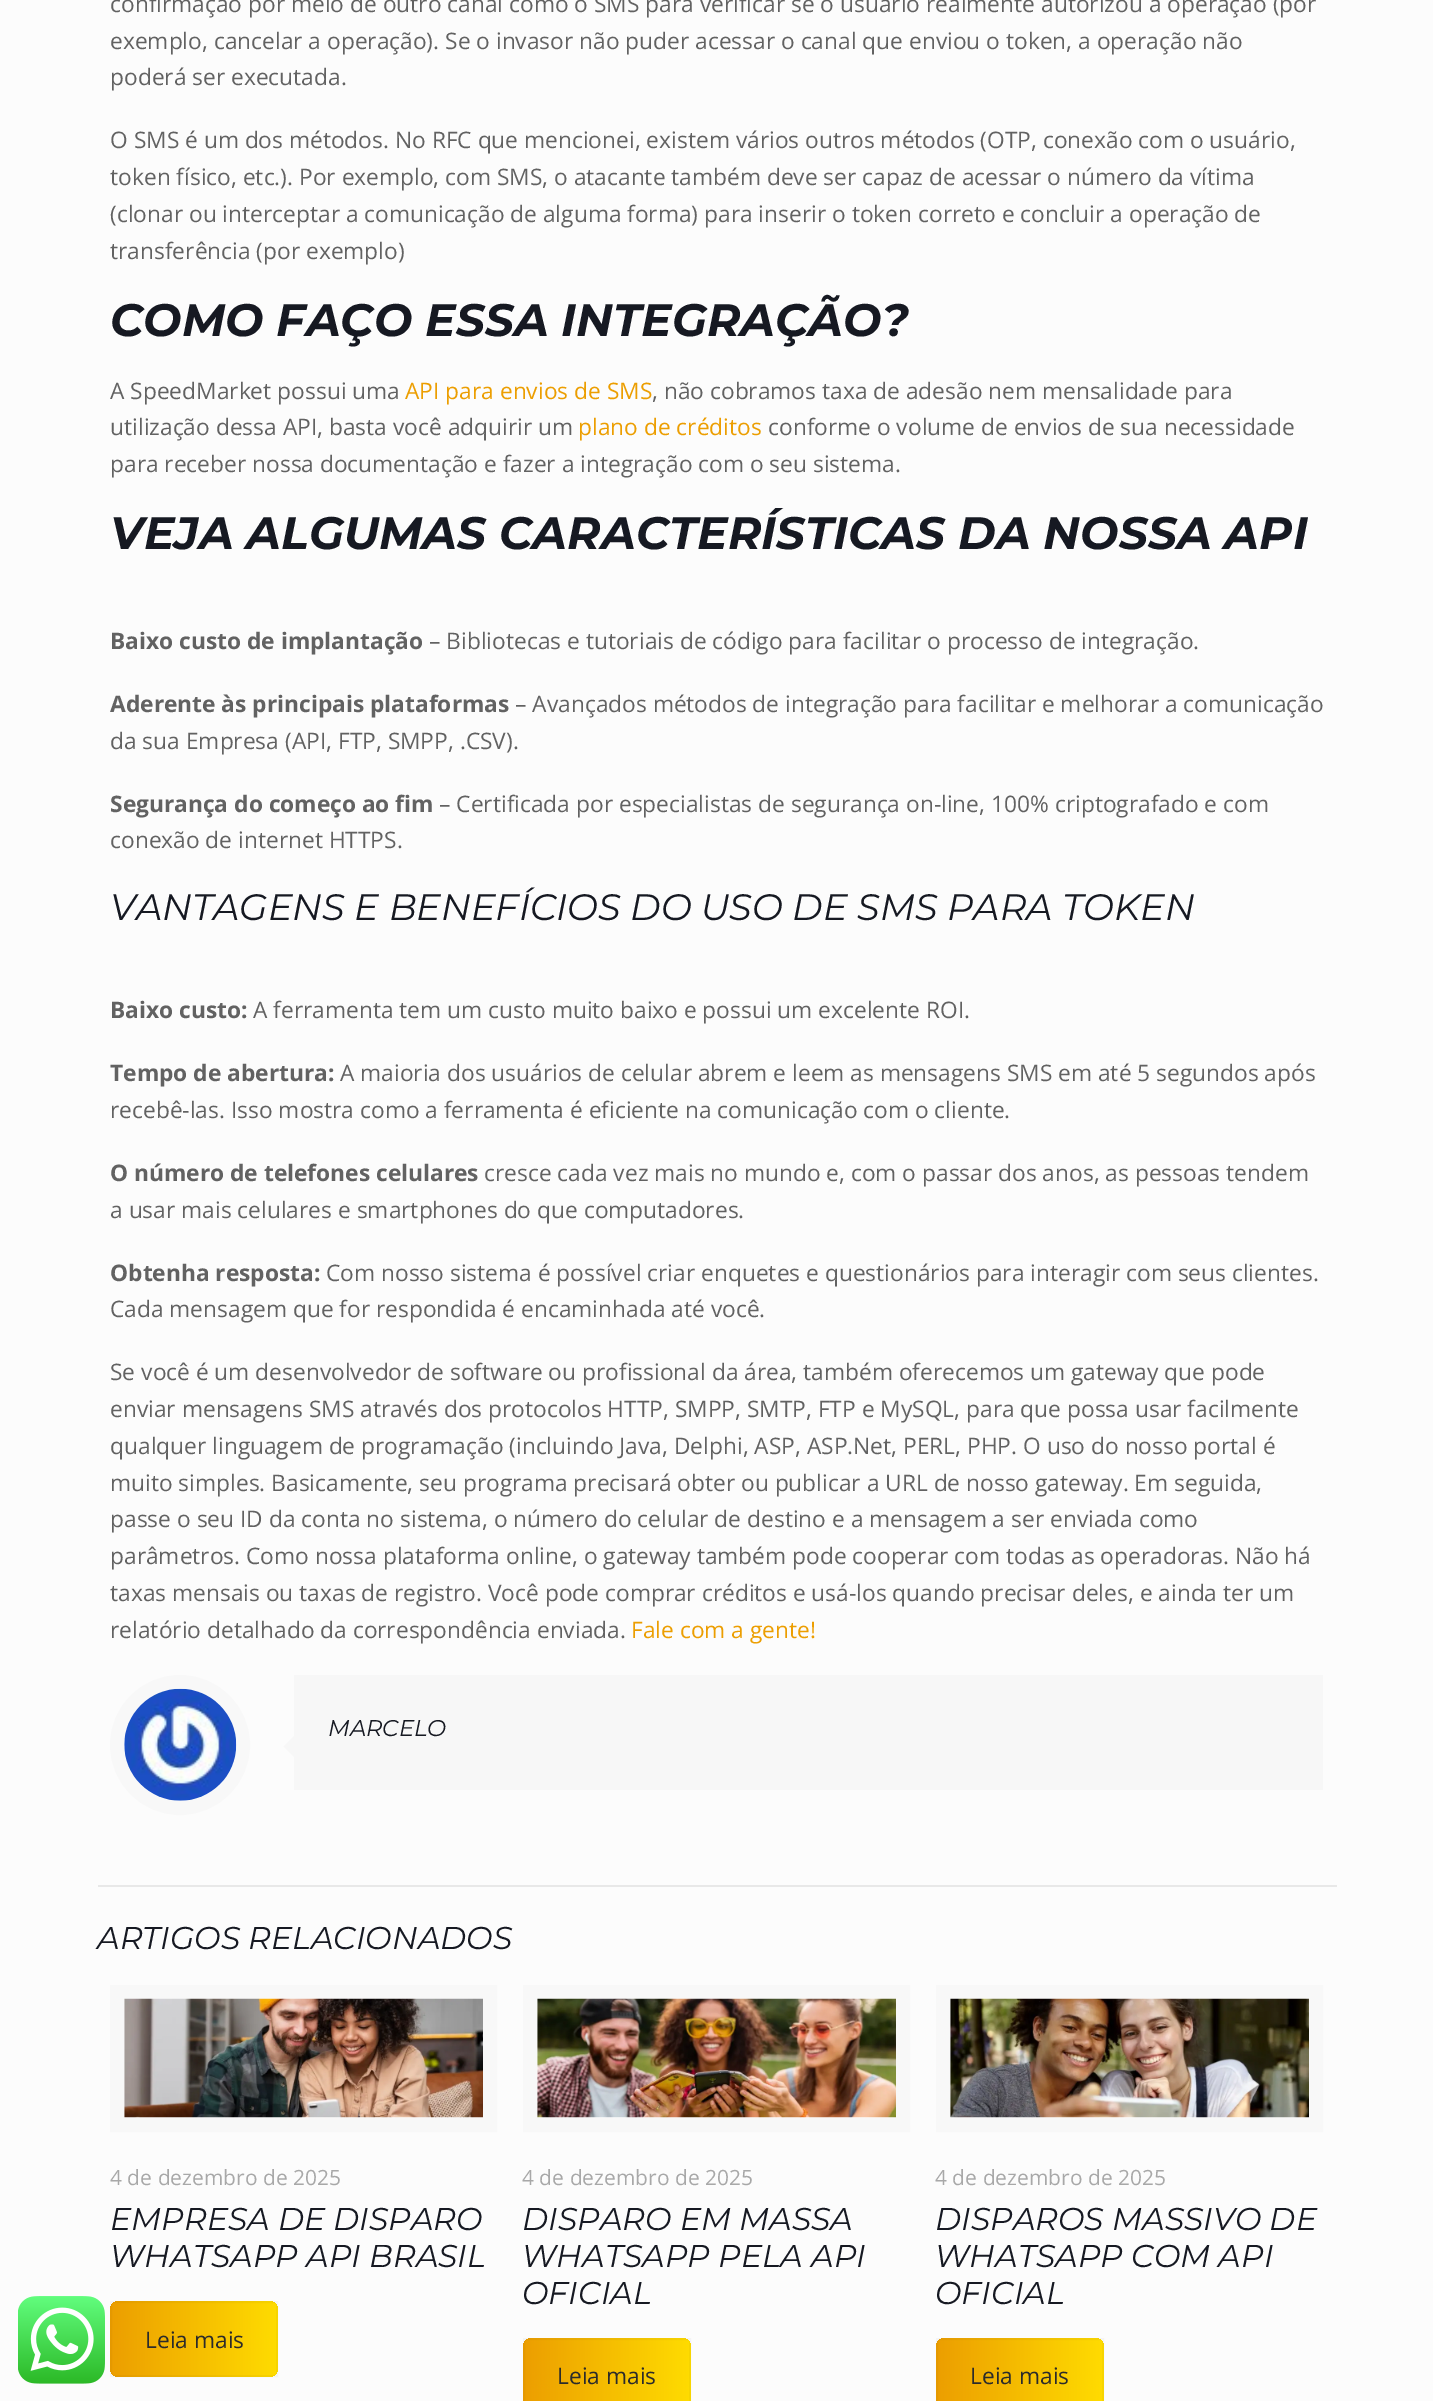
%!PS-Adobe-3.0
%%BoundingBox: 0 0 1433 2401
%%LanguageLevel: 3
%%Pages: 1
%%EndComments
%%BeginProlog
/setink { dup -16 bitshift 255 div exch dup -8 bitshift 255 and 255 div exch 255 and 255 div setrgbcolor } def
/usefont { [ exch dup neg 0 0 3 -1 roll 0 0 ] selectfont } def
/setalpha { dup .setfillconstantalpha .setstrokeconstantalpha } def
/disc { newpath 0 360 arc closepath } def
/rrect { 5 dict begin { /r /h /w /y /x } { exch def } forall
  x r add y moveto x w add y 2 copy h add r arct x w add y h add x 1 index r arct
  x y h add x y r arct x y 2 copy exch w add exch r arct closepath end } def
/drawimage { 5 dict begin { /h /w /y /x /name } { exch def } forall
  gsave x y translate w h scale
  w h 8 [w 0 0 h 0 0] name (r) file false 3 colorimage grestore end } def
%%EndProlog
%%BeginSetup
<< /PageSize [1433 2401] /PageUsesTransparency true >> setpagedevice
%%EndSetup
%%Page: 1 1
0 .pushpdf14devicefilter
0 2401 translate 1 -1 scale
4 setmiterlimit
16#FCFCFC setink
0 0 1433 2401 rectfill
(img1.raw) 18 2296 87 88 drawimage
/OpenSans-Regular 22.75 usefont
16#626262 setink
[
    [(confirmação por meio de outro canal como o SMS para verificar se o usuário realmente autorizou a operação \(por) 110 12]
    [(exemplo, cancelar a operação\). Se o invasor não puder acessar o canal que enviou o token, a operação não) 110 49]
    [(poderá ser executada.) 110 85]
    [(O SMS é um dos métodos. No RFC que mencionei, existem vários outros métodos \(OTP, conexão com o usuário,) 110 148]
    [(token físico, etc.\). Por exemplo, com SMS, o atacante também deve ser capaz de acessar o número da vítima) 110 185]
    [(\(clonar ou interceptar a comunicação de alguma forma\) para inserir o token correto e concluir a operação de) 110 222]
    [(transferência \(por exemplo\)) 110 259]
] { aload pop moveto show } forall
/Montserrat-BoldItalic 45.5 usefont
16#161922 setink
110 336 moveto (COMO FAÇO ESSA INTEGRAÇÃO?) show
/OpenSans-Regular 22.75 usefont
16#626262 setink
110 399 moveto (A SpeedMarket possui uma) show
16#EC9E01 setink
405 399 moveto (API para envios de SMS) show
16#626262 setink
652 399 moveto (, não cobramos taxa de adesão nem mensalidade para) show
110 435 moveto (utilização dessa API, basta você adquirir um) show
16#EC9E01 setink
578 435 moveto (plano de créditos) show
16#626262 setink
768 435 moveto (conforme o volume de envios de sua necessidade) show
110 472 moveto (para receber nossa documentação e fazer a integração com o seu sistema.) show
/Montserrat-BoldItalic 45.5 usefont
16#161922 setink
110 549 moveto (VEJA ALGUMAS CARACTERÍSTICAS DA NOSSA API) show
/OpenSans-Bold 22.75 usefont
16#626262 setink
110 649 moveto (Baixo custo de implantação) show
/OpenSans-Regular 22.75 usefont
429 649 moveto (– Bibliotecas e tutoriais de código para facilitar o processo de integração.) show
/OpenSans-Bold 22.75 usefont
110 712 moveto (Aderente às principais plataformas) show
/OpenSans-Regular 22.75 usefont
515 712 moveto (– Avançados métodos de integração para facilitar e melhorar a comunicação) show
110 749 moveto (da sua Empresa \(API, FTP, SMPP, .CSV\).) show
/OpenSans-Bold 22.75 usefont
110 812 moveto (Segurança do começo ao fim) show
/OpenSans-Regular 22.75 usefont
439 812 moveto (– Certificada por especialistas de segurança on-line, 100% criptografado e com) show
110 848 moveto (conexão de internet HTTPS.) show
/Montserrat-Italic 36.75 usefont
16#161922 setink
110 920 moveto (VANTAGENS E BENEFÍCIOS DO USO DE SMS PARA TOKEN) show
/OpenSans-Bold 22.75 usefont
16#626262 setink
110 1018 moveto (Baixo custo:) show
/OpenSans-Regular 22.75 usefont
253 1018 moveto (A ferramenta tem um custo muito baixo e possui um excelente ROI.) show
/OpenSans-Bold 22.75 usefont
110 1081 moveto (Tempo de abertura:) show
/OpenSans-Regular 22.75 usefont
340 1081 moveto (A maioria dos usuários de celular abrem e leem as mensagens SMS em até 5 segundos após) show
110 1118 moveto (recebê-las. Isso mostra como a ferramenta é eficiente na comunicação com o cliente.) show
/OpenSans-Bold 22.75 usefont
110 1181 moveto (O número de telefones celulares) show
/OpenSans-Regular 22.75 usefont
484 1181 moveto (cresce cada vez mais no mundo e, com o passar dos anos, as pessoas tendem) show
110 1218 moveto (a usar mais celulares e smartphones do que computadores.) show
/OpenSans-Bold 22.75 usefont
110 1281 moveto (Obtenha resposta:) show
/OpenSans-Regular 22.75 usefont
[
    [(Com nosso sistema é possível criar enquetes e questionários para interagir com seus clientes.) 326 1281]
    [(Cada mensagem que for respondida é encaminhada até você.) 110 1317]
    [(Se você é um desenvolvedor de software ou profissional da área, também oferecemos um gateway que pode) 110 1380]
    [(enviar mensagens SMS através dos protocolos HTTP, SMPP, SMTP, FTP e MySQL, para que possa usar facilmente) 110 1417]
    [(qualquer linguagem de programação \(incluindo Java, Delphi, ASP, ASP.Net, PERL, PHP. O uso do nosso portal é) 110 1454]
    [(muito simples. Basicamente, seu programa precisará obter ou publicar a URL de nosso gateway. Em seguida,) 110 1491]
    [(passe o seu ID da conta no sistema, o número do celular de destino e a mensagem a ser enviada como) 110 1527]
    [(parâmetros. Como nossa plataforma online, o gateway também pode cooperar com todas as operadoras. Não há) 110 1564]
    [(taxas mensais ou taxas de registro. Você pode comprar créditos e usá-los quando precisar deles, e ainda ter um) 110 1601]
    [(relatório detalhado da correspondência enviada.) 110 1638]
] { aload pop moveto show } forall
16#EC9E01 setink
631 1638 moveto (Fale com a gente!) show
16#F8F8F8 setink
14 setlinewidth
180 1745 63 disc stroke
(img2.raw) 124 1688 113 113 drawimage
16#F7F7F7 setink
294 1675 1029 115 rectfill
/Montserrat-Italic 22.75 usefont
16#161922 setink
328 1736 moveto (MARCELO) show
16#F7F7F7 setink
294 1736 moveto 294 1757 lineto 283.5 1746.5 lineto closepath fill
16#E8E8E8 setink
98 1885 1239 2 rectfill
/Montserrat-Italic 31.5 usefont
16#161922 setink
97 1949 moveto (ARTIGOS RELACIONADOS) show
16#F8F8F8 setink
117 1992 373 133 rectstroke
(img3.raw) 124 1998 359 120 drawimage
/OpenSans-Regular 21 usefont
16#A8A8A8 setink
110 2185 moveto (4 de dezembro de 2025) show
/Montserrat-Italic 31.5 usefont
16#161922 setink
110 2230 moveto (EMPRESA DE DISPARO) show
110 2267 moveto (WHATSAPP API BRASIL) show
gsave 110 2301 168 76 9 rrect clip newpath
<< /ShadingType 2 /ColorSpace /DeviceRGB /Coords [110 2339 278 2339] /Extend [true true] /Function << /FunctionType 2 /Domain [0 1] /C0 [0.925 0.62 0.004] /C1 [1 0.863 0] /N 1 >> >> shfill grestore
0.03 setalpha
16#000000 setink
2 setlinewidth
111 2302 166 74 rectstroke
/OpenSans-Regular 22.75 usefont
1 setalpha
16#2B2B2B setink
145 2348 moveto (Leia mais) show
16#F8F8F8 setink
14 setlinewidth
530 1992 373 133 rectstroke
(img4.raw) 537 1998 359 120 drawimage
/OpenSans-Regular 21 usefont
16#A8A8A8 setink
522 2185 moveto (4 de dezembro de 2025) show
/Montserrat-Italic 31.5 usefont
16#161922 setink
[
    [(DISPARO EM MASSA) 522 2230]
    [(WHATSAPP PELA API) 522 2267]
    [(OFICIAL) 522 2304]
] { aload pop moveto show } forall
gsave 523 2338 168 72 9 rrect clip newpath
<< /ShadingType 2 /ColorSpace /DeviceRGB /Coords [523 2376 691 2376] /Extend [true true] /Function << /FunctionType 2 /Domain [0 1] /C0 [0.925 0.62 0.004] /C1 [1 0.863 0] /N 1 >> >> shfill grestore
0.03 setalpha
16#000000 setink
2 setlinewidth
524 2339 166 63 rectstroke
/OpenSans-Regular 22.75 usefont
1 setalpha
16#2B2B2B setink
557 2384 moveto (Leia mais) show
16#F8F8F8 setink
14 setlinewidth
943 1992 373 133 rectstroke
(img5.raw) 950 1998 359 120 drawimage
/OpenSans-Regular 21 usefont
16#A8A8A8 setink
935 2185 moveto (4 de dezembro de 2025) show
/Montserrat-Italic 31.5 usefont
16#161922 setink
[
    [(DISPAROS MASSIVO DE) 935 2230]
    [(WHATSAPP COM API) 935 2267]
    [(OFICIAL) 935 2304]
] { aload pop moveto show } forall
gsave 936 2338 168 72 9 rrect clip newpath
<< /ShadingType 2 /ColorSpace /DeviceRGB /Coords [936 2376 1104 2376] /Extend [true true] /Function << /FunctionType 2 /Domain [0 1] /C0 [0.925 0.62 0.004] /C1 [1 0.863 0] /N 1 >> >> shfill grestore
0.03 setalpha
16#000000 setink
2 setlinewidth
937 2339 166 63 rectstroke
/OpenSans-Regular 22.75 usefont
1 setalpha
16#2B2B2B setink
970 2384 moveto (Leia mais) show
.poppdf14devicefilter showpage
%%EOF
